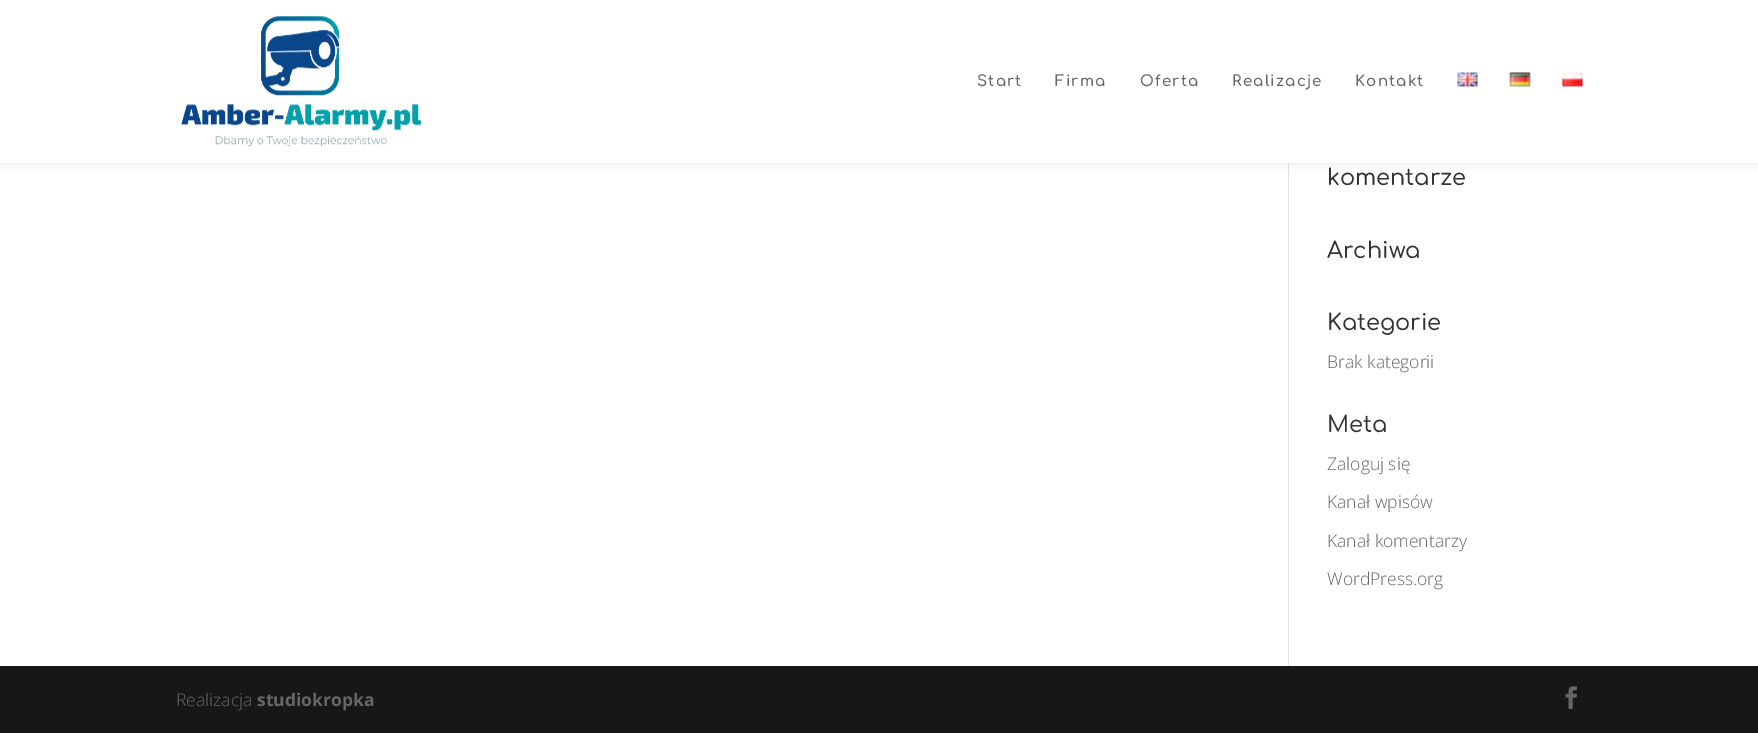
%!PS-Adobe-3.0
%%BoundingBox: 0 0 1758 733
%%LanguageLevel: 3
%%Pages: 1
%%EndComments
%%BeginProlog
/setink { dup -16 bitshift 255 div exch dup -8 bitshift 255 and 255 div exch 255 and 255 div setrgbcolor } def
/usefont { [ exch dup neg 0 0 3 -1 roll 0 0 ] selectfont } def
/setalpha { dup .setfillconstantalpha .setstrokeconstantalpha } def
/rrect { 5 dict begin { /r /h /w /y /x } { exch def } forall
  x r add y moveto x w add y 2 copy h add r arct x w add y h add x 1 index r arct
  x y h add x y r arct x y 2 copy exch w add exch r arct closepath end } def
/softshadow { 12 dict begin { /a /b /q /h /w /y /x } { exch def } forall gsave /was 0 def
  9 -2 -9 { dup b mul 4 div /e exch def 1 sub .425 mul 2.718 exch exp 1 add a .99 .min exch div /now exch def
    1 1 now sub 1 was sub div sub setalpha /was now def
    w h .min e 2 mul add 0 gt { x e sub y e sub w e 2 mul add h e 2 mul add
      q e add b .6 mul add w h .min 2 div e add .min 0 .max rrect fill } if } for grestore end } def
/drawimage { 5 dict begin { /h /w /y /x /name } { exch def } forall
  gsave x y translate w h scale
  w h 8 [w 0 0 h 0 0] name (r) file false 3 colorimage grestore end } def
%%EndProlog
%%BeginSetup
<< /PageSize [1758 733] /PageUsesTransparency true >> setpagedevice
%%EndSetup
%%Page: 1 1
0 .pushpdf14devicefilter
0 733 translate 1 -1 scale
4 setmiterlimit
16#FFFFFF setink
0 0 1758 733 rectfill
16#E2E2E2 setink
1288 163 1 503 rectfill
16#000000 setink
0 0 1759 163 0 4.5 0.1 softshadow
16#FFFFFF setink
0 0 1758 163 rectfill
(img1.raw) 181 16 241 131 drawimage
/Comfortaa-SemiBold 15 usefont
16#666666 setink
977 86 moveto 1.25 0 (Start) ashow
1055 86 moveto 1.25 0 (Firma) ashow
1140 86 moveto 1.25 0 (Oferta) ashow
1232 86 moveto 1.25 0 (Realizacje) ashow
1355 86 moveto 1.25 0 (Kontakt) ashow
(img2.raw) 1457 72 21 15 drawimage
(img3.raw) 1509 72 22 15 drawimage
(img4.raw) 1562 72 21 15 drawimage
/Comfortaa-Medium 22.5 usefont
16#333333 setink
[
    [(komentarze) 1327 185]
    [(Archiwa) 1327 258]
    [(Kategorie) 1327 330]
] { aload pop moveto show } forall
/OpenSans-Light 17.5 usefont
16#666666 setink
1327 368 moveto (Brak kategorii) show
/Comfortaa-Medium 22.5 usefont
16#333333 setink
1327 432 moveto (Meta) show
/OpenSans-Light 17.5 usefont
16#666666 setink
[
    [(Zaloguj się) 1327 470]
    [(Kanał wpisów) 1327 508]
    [(Kanał komentarzy) 1327 547]
    [(WordPress.org) 1327 585]
] { aload pop moveto show } forall
16#171717 setink
0 666 1758 67 rectfill
16#666666 setink
176 706 moveto (Realizacja) show
/OpenSans-Bold 17.5 usefont
257 706 moveto (studiokropka) show
(img5.raw) 1565 686 12 23 drawimage
.poppdf14devicefilter showpage
%%EOF
